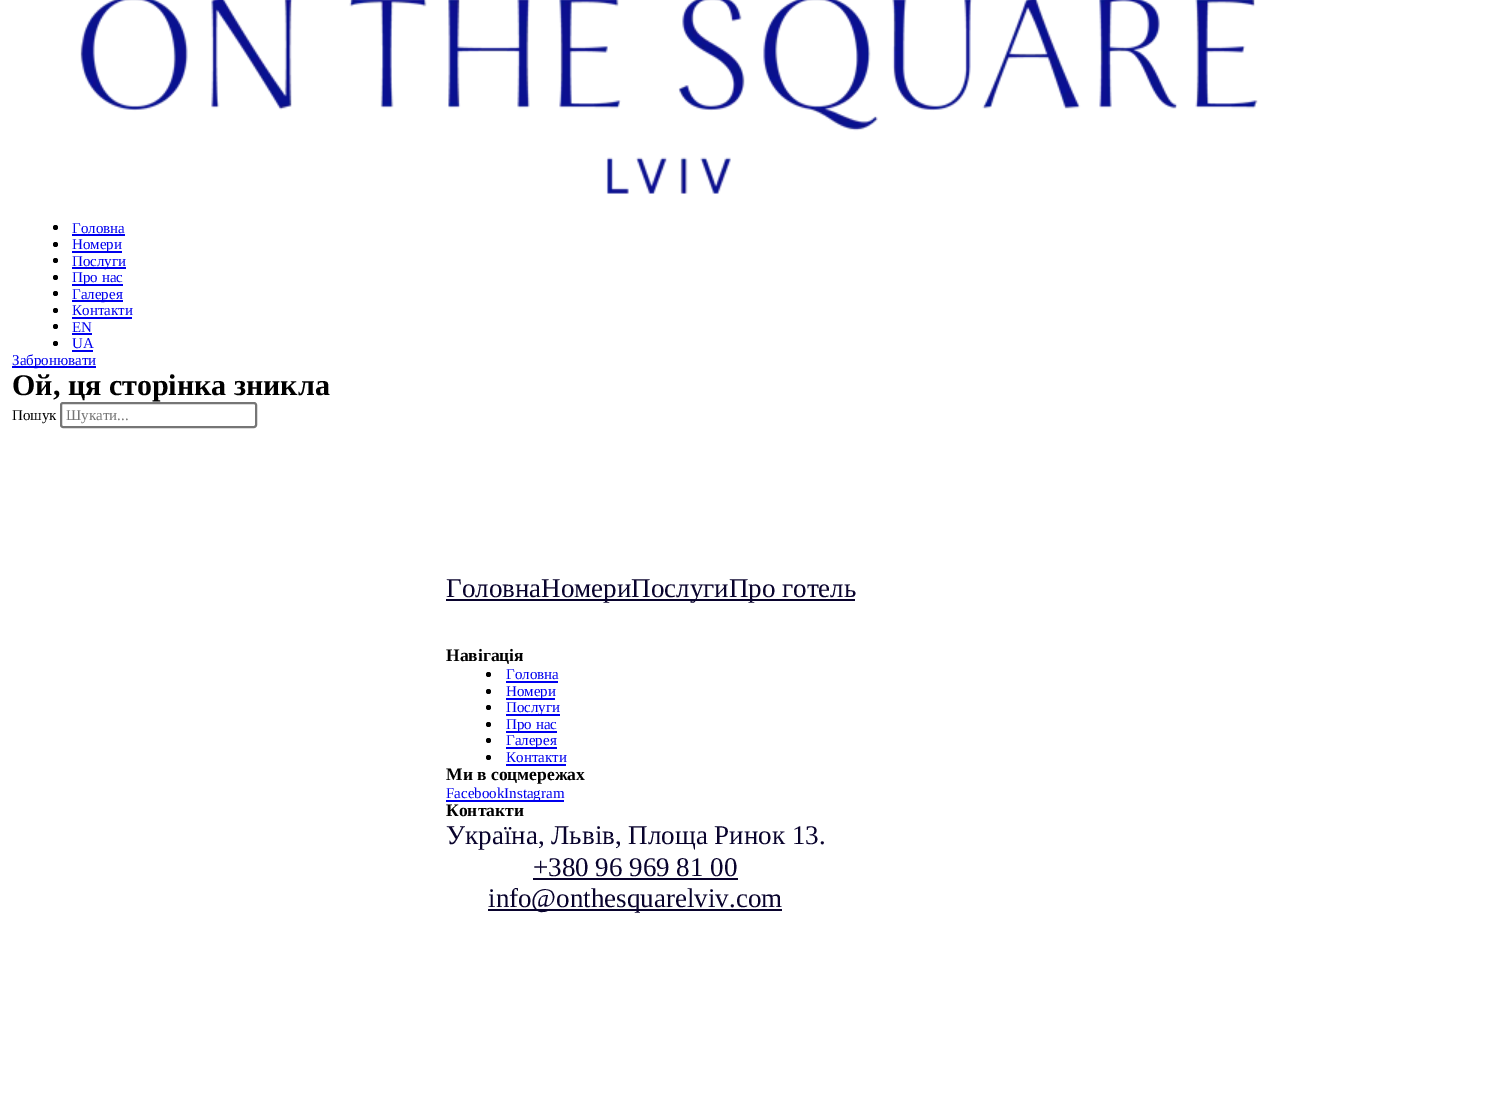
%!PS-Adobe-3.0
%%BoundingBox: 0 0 1496 1120
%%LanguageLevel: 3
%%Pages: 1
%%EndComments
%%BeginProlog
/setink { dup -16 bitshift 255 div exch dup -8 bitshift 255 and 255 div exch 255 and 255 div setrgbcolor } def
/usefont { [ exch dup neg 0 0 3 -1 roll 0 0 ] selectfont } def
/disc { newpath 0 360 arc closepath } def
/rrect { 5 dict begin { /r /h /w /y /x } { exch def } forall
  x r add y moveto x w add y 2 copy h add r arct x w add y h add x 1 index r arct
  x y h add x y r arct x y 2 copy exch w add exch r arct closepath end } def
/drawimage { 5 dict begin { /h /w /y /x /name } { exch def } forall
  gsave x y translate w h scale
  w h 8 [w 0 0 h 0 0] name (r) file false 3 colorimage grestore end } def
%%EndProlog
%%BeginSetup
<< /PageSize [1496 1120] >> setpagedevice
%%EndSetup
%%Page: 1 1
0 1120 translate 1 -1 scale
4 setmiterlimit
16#FFFFFF setink
0 0 1496 1120 rectfill
(img1.raw) 80 0 1178 194 drawimage
16#000000 setink
55.5 227.5 2.5 disc fill
/LiberationSerif-Regular 15 usefont
16#0000EE setink
72 233 moveto (Головна) show
72 234 53 2 rectfill
16#000000 setink
55.5 244.5 2.5 disc fill
16#0000EE setink
72 251 50 2 rectfill
72 249 moveto (Номери) show
16#000000 setink
55.5 260.5 2.5 disc fill
16#0000EE setink
72 267 54 2 rectfill
72 266 moveto (Послуги) show
16#000000 setink
55.5 277.5 2.5 disc fill
16#0000EE setink
72 284 51 2 rectfill
72 282 moveto (Про нас) show
16#000000 setink
55.5 293.5 2.5 disc fill
16#0000EE setink
72 300 51 2 rectfill
72 299 moveto (Галерея) show
16#000000 setink
55.5 310.5 2.5 disc fill
16#0000EE setink
72 315 moveto (Контакти) show
72 317 60 2 rectfill
16#000000 setink
55.5 326.5 2.5 disc fill
16#0000EE setink
72 332 moveto (EN) show
72 333 20 2 rectfill
16#000000 setink
55.5 343.5 2.5 disc fill
16#0000EE setink
72 348 moveto (UA) show
72 350 21 2 rectfill
12 366 84 2 rectfill
12 365 moveto (Забронювати) show
/LiberationSerif-Bold 30 usefont
16#000000 setink
12 395 moveto (Ой, ця сторінка зникла) show
/LiberationSerif-Regular 15 usefont
12 420 moveto (Пошук) show
16#767676 setink
2 setlinewidth
61 403 195 24 2 rrect stroke
16#757575 setink
66 420 moveto (Шукати...) show
16#09032D setink
446 599 409 2 rectfill
/LiberationSerif-Regular 27 usefont
446 597 moveto (ГоловнаНомериПослугиПро готель) show
/LiberationSerif-Bold 17.5 usefont
16#000000 setink
446 661 moveto (Навігація) show
488.5 674.5 2.5 disc fill
/LiberationSerif-Regular 15 usefont
16#0000EE setink
506 679 moveto (Головна) show
506 681 52 2 rectfill
16#000000 setink
488.5 691.5 2.5 disc fill
16#0000EE setink
506 698 49 2 rectfill
506 696 moveto (Номери) show
16#000000 setink
488.5 707.5 2.5 disc fill
16#0000EE setink
506 714 54 2 rectfill
506 712 moveto (Послуги) show
16#000000 setink
488.5 724.5 2.5 disc fill
16#0000EE setink
506 731 51 2 rectfill
506 729 moveto (Про нас) show
16#000000 setink
488.5 740.5 2.5 disc fill
16#0000EE setink
506 747 51 2 rectfill
506 745 moveto (Галерея) show
16#000000 setink
488.5 757.5 2.5 disc fill
16#0000EE setink
506 762 moveto (Контакти) show
506 764 60 2 rectfill
/LiberationSerif-Bold 17.5 usefont
16#000000 setink
446 780 moveto (Ми в соцмережах) show
16#0000EE setink
446 800 118 2 rectfill
/LiberationSerif-Regular 15 usefont
446 798 moveto (FacebookInstagram) show
/LiberationSerif-Bold 17.5 usefont
16#000000 setink
446 816 moveto (Контакти) show
/LiberationSerif-Regular 27 usefont
16#09032D setink
446 844 moveto (Україна, Львів, Площа Ринок 13.) show
533 876 moveto (+380 96 969 81 00) show
533 878 205 2 rectfill
488 909 294 2 rectfill
488 907 moveto (info@onthesquarelviv.com) show
showpage
%%EOF
